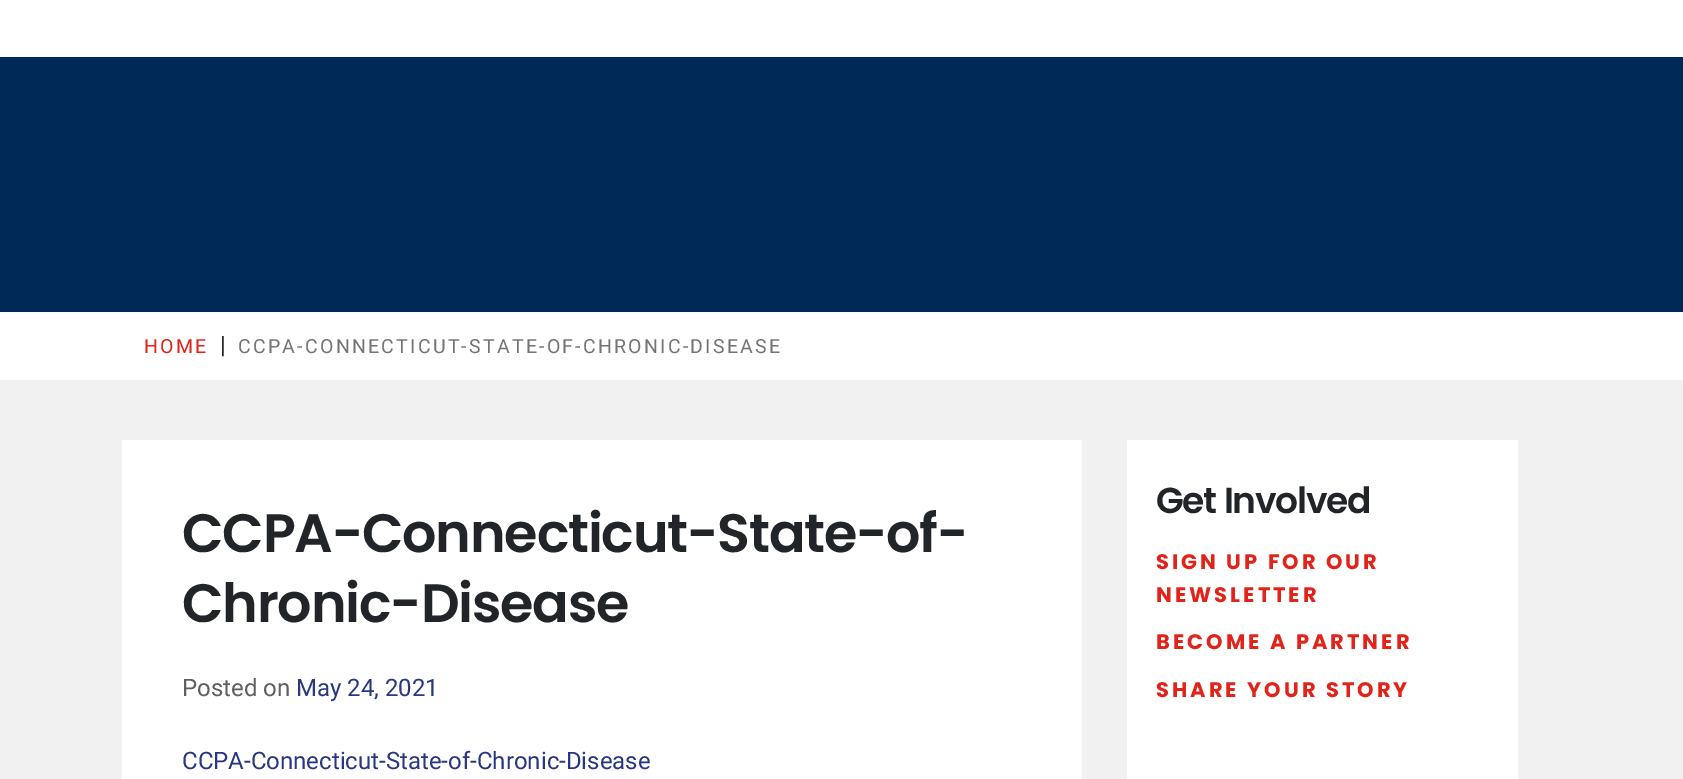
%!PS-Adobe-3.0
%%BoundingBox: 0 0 1683 779
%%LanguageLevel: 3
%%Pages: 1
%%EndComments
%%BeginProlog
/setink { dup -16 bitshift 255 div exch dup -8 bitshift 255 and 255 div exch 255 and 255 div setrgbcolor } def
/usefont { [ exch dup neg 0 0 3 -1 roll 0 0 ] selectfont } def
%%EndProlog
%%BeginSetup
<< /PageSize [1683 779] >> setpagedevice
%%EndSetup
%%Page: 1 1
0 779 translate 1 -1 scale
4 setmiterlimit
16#FFFFFF setink
0 0 1683 779 rectfill
16#002856 setink
0 57 1683 255 rectfill
/Roboto-Regular 19.5 usefont
16#E2231A setink
144 353 moveto 2.25 0 (HOME) ashow
/Roboto-Regular 24 usefont
16#212529 setink
220 353 moveto (|) show
/Roboto-Regular 19.5 usefont
16#747474 setink
238 353 moveto 2.25 0 (CCPA-CONNECTICUT-STATE-OF-CHRONIC-DISEASE) ashow
16#F1F1F1 setink
0 380 1683 399 rectfill
16#FFFFFF setink
122 440 960 339 rectfill
/Poppins-SemiBold 54 usefont
16#212529 setink
182 552 moveto -1.2 0 (CCPA-Connecticut-State-of-) ashow
182 622 moveto -1.2 0 (Chronic-Disease) ashow
/Roboto-Regular 24 usefont
16#5F5F5F setink
182 696 moveto (Posted on) show
16#293781 setink
296 696 moveto (May 24, 2021) show
182 769 moveto (CCPA-Connecticut-State-of-Chronic-Disease) show
16#FFFFFF setink
1127 440 391 339 rectfill
/Poppins-SemiBold 36 usefont
16#212529 setink
1156 513 moveto -1.2 0 (Get Involved) ashow
/Poppins-Bold 21 usefont
16#E2231A setink
1156 569 moveto 3 0 (SIGN UP FOR OUR) ashow
1156 602 moveto 3 0 (NEWSLETTER) ashow
1156 649 moveto 3 0 (BECOME A PARTNER) ashow
1156 697 moveto 3 0 (SHARE YOUR STORY) ashow
showpage
%%EOF
